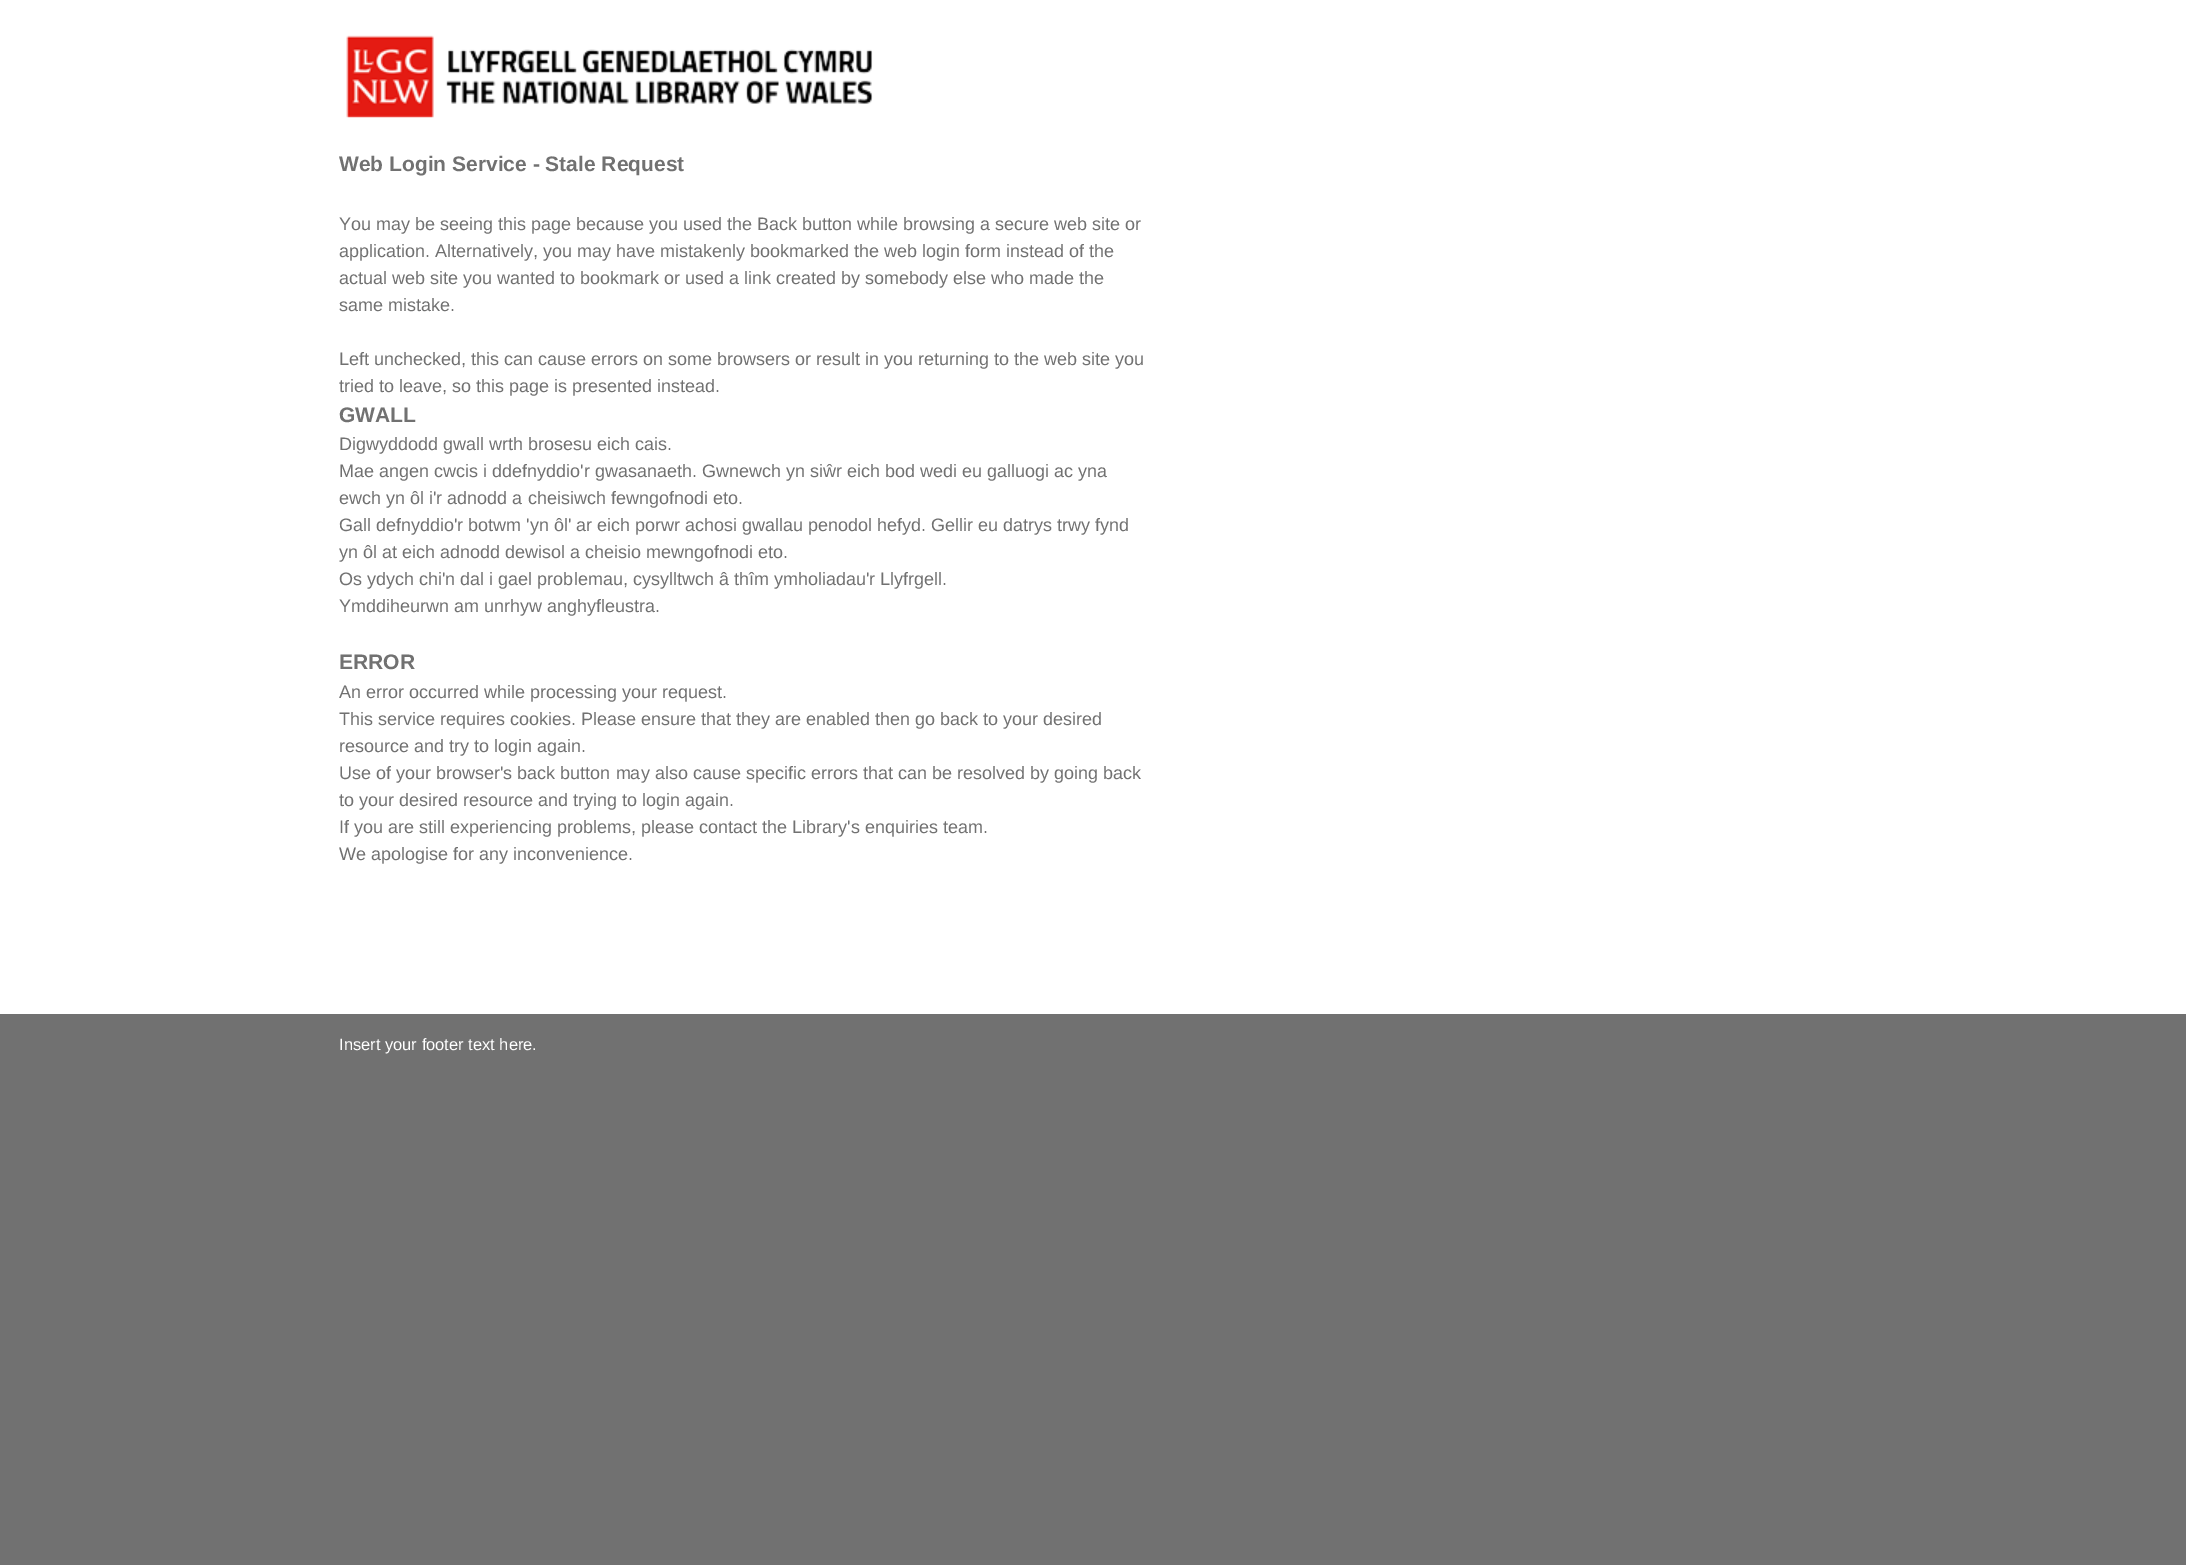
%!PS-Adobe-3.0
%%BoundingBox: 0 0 2186 1565
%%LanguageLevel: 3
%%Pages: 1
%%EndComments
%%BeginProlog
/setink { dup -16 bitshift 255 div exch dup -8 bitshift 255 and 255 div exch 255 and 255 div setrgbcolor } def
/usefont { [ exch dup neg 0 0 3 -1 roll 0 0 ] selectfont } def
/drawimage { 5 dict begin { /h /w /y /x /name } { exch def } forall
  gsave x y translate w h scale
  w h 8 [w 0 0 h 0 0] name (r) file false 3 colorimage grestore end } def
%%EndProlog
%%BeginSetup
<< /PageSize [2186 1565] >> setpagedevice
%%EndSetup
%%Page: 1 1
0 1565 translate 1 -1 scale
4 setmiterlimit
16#717171 setink
0 0 2186 1565 rectfill
16#FFFFFF setink
0 0 2186 1014 rectfill
(img1.raw) 346 35 527 83 drawimage
/LiberationSans-Bold 21 usefont
16#717171 setink
339 171 moveto (Web Login Service - Stale Request) show
/LiberationSans-Regular 18 usefont
[
    [(You may be seeing this page because you used the Back button while browsing a secure web site or) 339 230]
    [(application. Alternatively, you may have mistakenly bookmarked the web login form instead of the) 339 257]
    [(actual web site you wanted to bookmark or used a link created by somebody else who made the) 339 284]
    [(same mistake.) 339 311]
    [(Left unchecked, this can cause errors on some browsers or result in you returning to the web site you) 339 365]
    [(tried to leave, so this page is presented instead.) 339 392]
] { aload pop moveto show } forall
/LiberationSans-Bold 21 usefont
339 422 moveto (GWALL) show
/LiberationSans-Regular 18 usefont
[
    [(Digwyddodd gwall wrth brosesu eich cais.) 339 450]
    [(Mae angen cwcis i ddefnyddio'r gwasanaeth. Gwnewch yn siŵr eich bod wedi eu galluogi ac yna) 339 477]
    [(ewch yn ôl i'r adnodd a cheisiwch fewngofnodi eto.) 339 504]
    [(Gall defnyddio'r botwm 'yn ôl' ar eich porwr achosi gwallau penodol hefyd. Gellir eu datrys trwy fynd) 339 531]
    [(yn ôl at eich adnodd dewisol a cheisio mewngofnodi eto.) 339 558]
    [(Os ydych chi'n dal i gael problemau, cysylltwch â thîm ymholiadau'r Llyfrgell.) 339 585]
    [(Ymddiheurwn am unrhyw anghyfleustra.) 339 612]
] { aload pop moveto show } forall
/LiberationSans-Bold 21 usefont
339 669 moveto (ERROR) show
/LiberationSans-Regular 18 usefont
[
    [(An error occurred while processing your request.) 339 698]
    [(This service requires cookies. Please ensure that they are enabled then go back to your desired) 339 725]
    [(resource and try to login again.) 339 752]
    [(Use of your browser's back button may also cause specific errors that can be resolved by going back) 339 779]
    [(to your desired resource and trying to login again.) 339 806]
    [(If you are still experiencing problems, please contact the Library's enquiries team.) 339 833]
    [(We apologise for any inconvenience.) 339 860]
] { aload pop moveto show } forall
/LiberationSans-Regular 16.5 usefont
16#FFFFFF setink
339 1050 moveto (Insert your footer text here.) show
showpage
%%EOF
